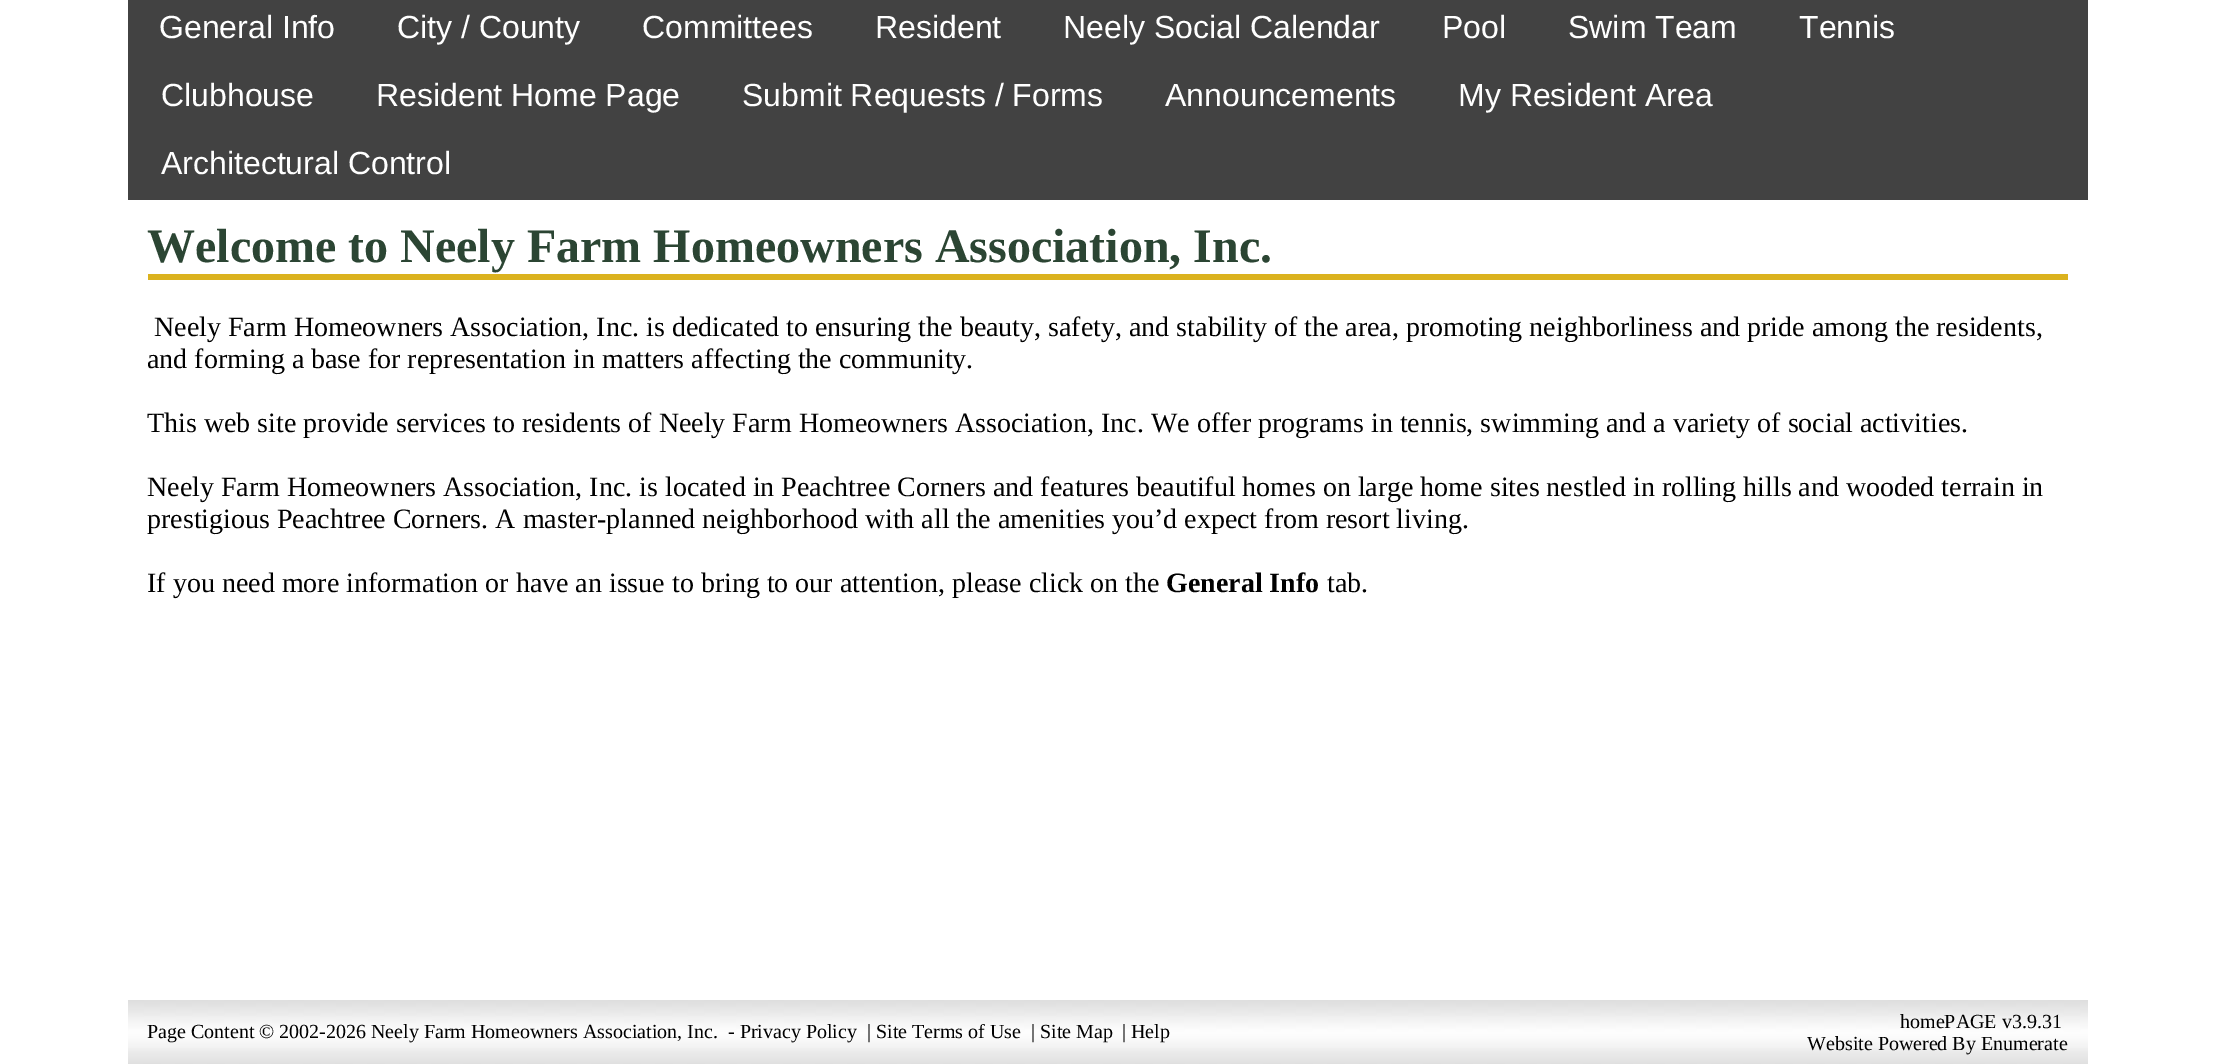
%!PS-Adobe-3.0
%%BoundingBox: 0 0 2214 1064
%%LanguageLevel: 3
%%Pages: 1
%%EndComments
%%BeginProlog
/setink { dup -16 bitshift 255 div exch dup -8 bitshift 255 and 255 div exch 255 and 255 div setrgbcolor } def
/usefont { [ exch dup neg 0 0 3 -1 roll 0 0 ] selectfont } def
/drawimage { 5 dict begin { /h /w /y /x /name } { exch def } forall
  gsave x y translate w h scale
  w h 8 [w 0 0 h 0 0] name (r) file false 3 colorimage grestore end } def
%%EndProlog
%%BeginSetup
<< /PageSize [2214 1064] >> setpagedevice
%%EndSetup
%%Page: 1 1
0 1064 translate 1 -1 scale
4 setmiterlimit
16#FFFFFF setink
0 0 2214 1064 rectfill
16#424242 setink
128 0 1960 200 rectfill
/LiberationSans-Regular 32 usefont
16#FFFFFF setink
[
    [(General Info) 159 38]
    [(City / County) 397 38]
    [(Committees) 642 38]
    [(Resident) 875 38]
    [(Neely Social Calendar) 1063 38]
    [(Pool) 1442 38]
    [(Swim Team) 1568 38]
    [(Tennis) 1799 38]
    [(Clubhouse) 161 106]
    [(Resident Home Page) 376 106]
    [(Submit Requests / Forms) 742 106]
    [(Announcements) 1165 106]
    [(My Resident Area) 1458 106]
    [(Architectural Control) 161 174]
] { aload pop moveto show } forall
16#DBB21E setink
148 274 1920 6 rectfill
/LiberationSerif-Bold 48 usefont
16#2B4533 setink
147 262 moveto (Welcome to Neely Farm Homeowners Association, Inc.) show
/LiberationSerif-Regular 28 usefont
16#000000 setink
[
    [(Neely Farm Homeowners Association, Inc. is dedicated to ensuring the beauty, safety, and stability of the area, promoting neighborliness and pride among the residents,) 154 336]
    [(and forming a base for representation in matters affecting the community.) 147 368]
    [(This web site provide services to residents of Neely Farm Homeowners Association, Inc. We offer programs in tennis, swimming and a variety of social activities.) 147 432]
    [(Neely Farm Homeowners Association, Inc. is located in Peachtree Corners and features beautiful homes on large home sites nestled in rolling hills and wooded terrain in) 147 496]
    [(prestigious Peachtree Corners. A master-planned neighborhood with all the amenities you’d expect from resort living.) 147 528]
    [(If you need more information or have an issue to bring to our attention, please click on the) 147 592]
] { aload pop moveto show } forall
/LiberationSerif-Bold 28 usefont
1166 592 moveto (General Info) show
/LiberationSerif-Regular 28 usefont
1327 592 moveto (tab.) show
(img1.raw) 128 1000 1960 64 drawimage
/LiberationSerif-Regular 20 usefont
[
    [(Page Content © 2002-2026 Neely Farm Homeowners Association, Inc.) 147 1038]
    [(- Privacy Policy) 728 1038]
    [(| Site Terms of Use) 867 1038]
    [(| Site Map) 1031 1038]
    [(| Help) 1122 1038]
    [(homePAGE v3.9.31) 1900 1028]
    [(Website Powered By Enumerate) 1807 1050]
] { aload pop moveto show } forall
showpage
%%EOF
